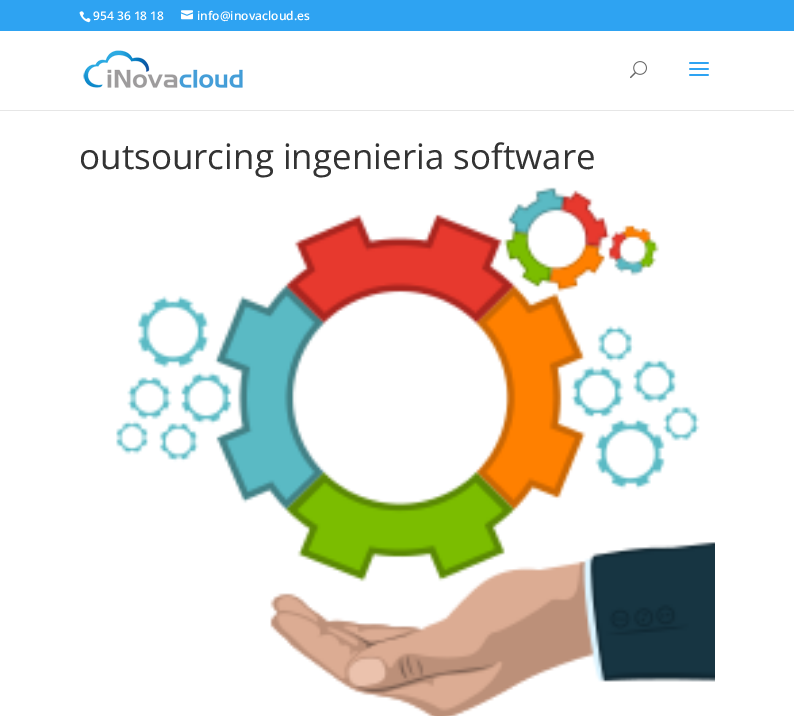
%!PS-Adobe-3.0
%%BoundingBox: 0 0 794 716
%%LanguageLevel: 3
%%Pages: 1
%%EndComments
%%BeginProlog
/setink { dup -16 bitshift 255 div exch dup -8 bitshift 255 and 255 div exch 255 and 255 div setrgbcolor } def
/usefont { [ exch dup neg 0 0 3 -1 roll 0 0 ] selectfont } def
/drawimage { 5 dict begin { /h /w /y /x /name } { exch def } forall
  gsave x y translate w h scale
  w h 8 [w 0 0 h 0 0] name (r) file false 3 colorimage grestore end } def
%%EndProlog
%%BeginSetup
<< /PageSize [794 716] >> setpagedevice
%%EndSetup
%%Page: 1 1
0 716 translate 1 -1 scale
4 setmiterlimit
16#FFFFFF setink
0 0 794 716 rectfill
16#2EA3F2 setink
0 0 794 31 rectfill
(img1.raw) 79 11 12 12 drawimage
/OpenSans-SemiBold 12 usefont
16#FFFFFF setink
93 20 moveto (954 36 18 18) show
(img2.raw) 181 10 12 10 drawimage
197 20 moveto (info@inovacloud.es) show
16#E6E6E6 setink
0 110 794 1 rectfill
(img3.raw) 83 50 160 38 drawimage
(img4.raw) 630 61 17 18 drawimage
(img5.raw) 689 62 20 14 drawimage
/OpenSans-Regular 35 usefont
16#333333 setink
79 169 moveto (outsourcing ingenieria software) show
(img6.raw) 116 187 599 529 drawimage
showpage
%%EOF
